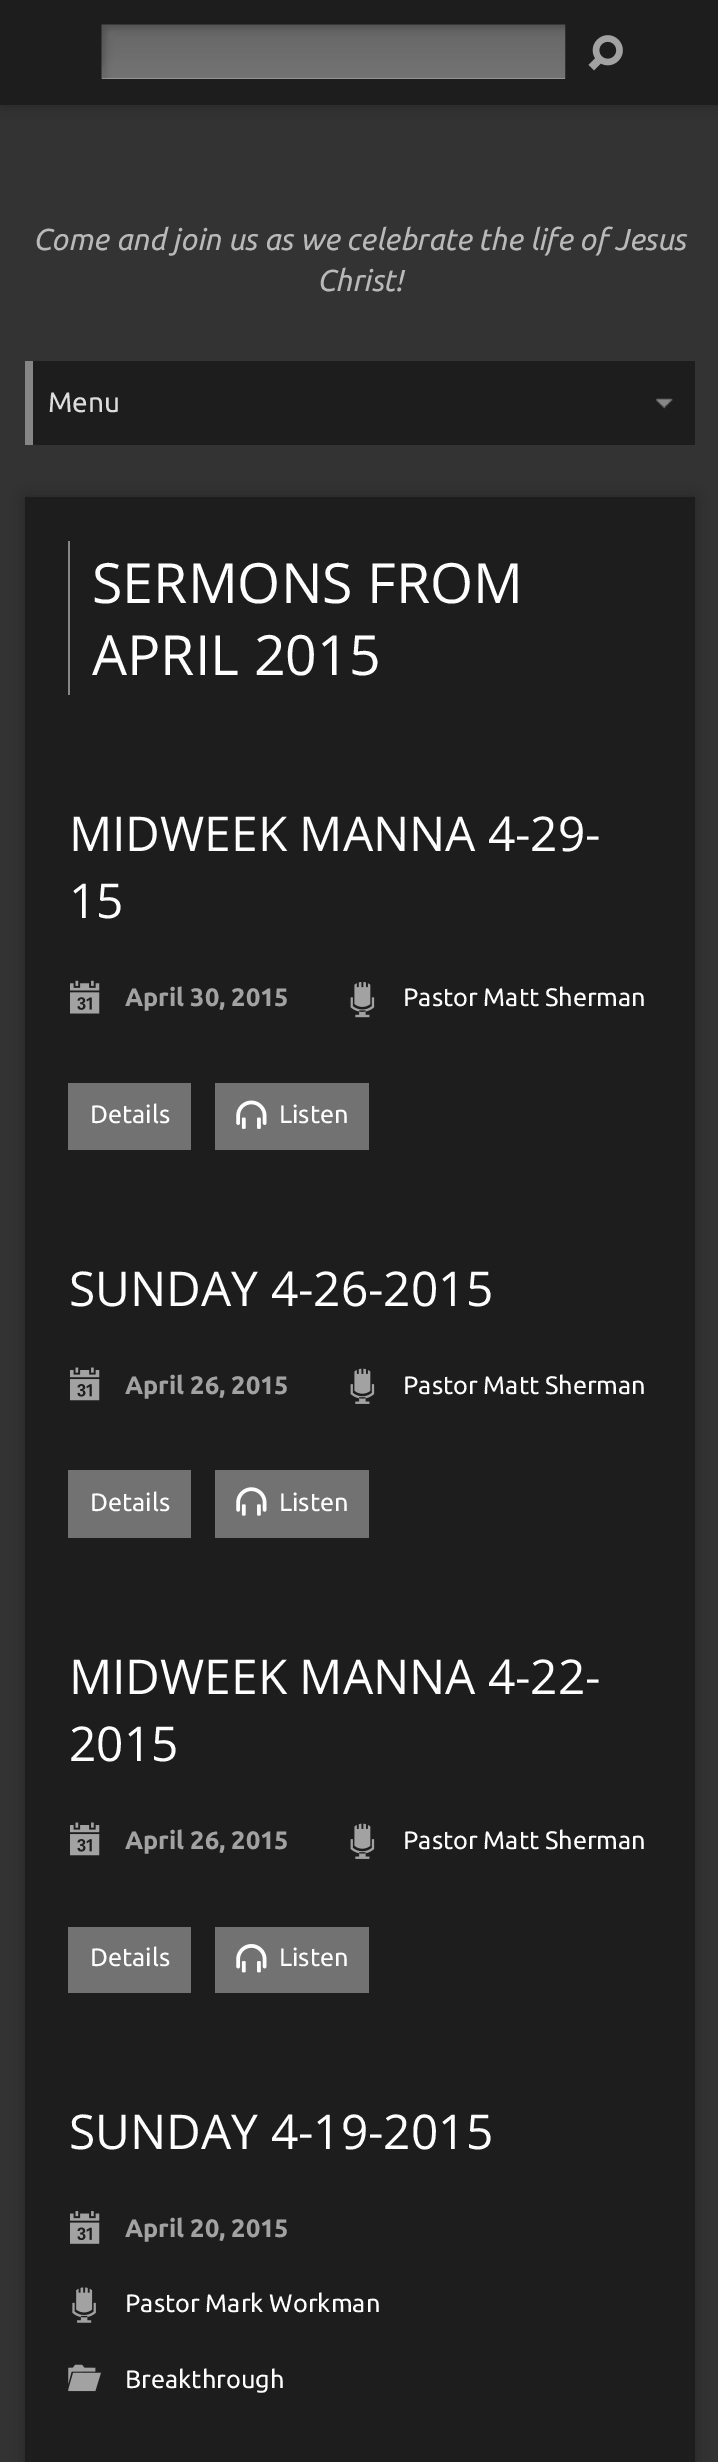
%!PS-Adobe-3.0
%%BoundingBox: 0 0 718 2462
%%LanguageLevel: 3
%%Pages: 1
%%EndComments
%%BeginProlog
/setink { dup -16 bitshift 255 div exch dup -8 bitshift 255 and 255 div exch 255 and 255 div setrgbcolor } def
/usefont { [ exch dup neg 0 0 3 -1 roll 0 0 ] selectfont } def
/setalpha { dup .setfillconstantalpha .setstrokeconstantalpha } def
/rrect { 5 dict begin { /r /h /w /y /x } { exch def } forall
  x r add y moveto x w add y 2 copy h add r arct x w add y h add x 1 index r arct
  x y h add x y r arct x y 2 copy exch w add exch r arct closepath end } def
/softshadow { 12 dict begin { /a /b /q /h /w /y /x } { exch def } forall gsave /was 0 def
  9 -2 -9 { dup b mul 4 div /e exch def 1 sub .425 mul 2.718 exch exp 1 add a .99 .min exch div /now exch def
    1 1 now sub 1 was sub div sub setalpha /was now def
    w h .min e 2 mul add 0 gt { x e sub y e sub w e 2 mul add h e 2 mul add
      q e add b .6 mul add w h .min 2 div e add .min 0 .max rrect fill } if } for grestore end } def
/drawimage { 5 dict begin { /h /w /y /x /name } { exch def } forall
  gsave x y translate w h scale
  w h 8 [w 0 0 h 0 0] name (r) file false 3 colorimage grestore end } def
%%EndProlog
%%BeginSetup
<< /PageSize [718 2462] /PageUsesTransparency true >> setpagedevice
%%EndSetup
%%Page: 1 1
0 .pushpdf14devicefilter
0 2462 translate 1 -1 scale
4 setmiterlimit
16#333333 setink
0 0 718 2462 rectfill
16#000000 setink
0 0 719 105 0 9 0.25 softshadow
16#1D1D1D setink
0 0 718 105 rectfill
(img1.raw) 101 24 465 55 drawimage
(img2.raw) 588 35 35 36 drawimage
/Ubuntu-Italic 30.25 usefont
16#B9B9B9 setink
33 250 moveto (Come and join us as we celebrate the life of Jesus) show
317 291 moveto (Christ!) show
0.94 setalpha
16#1C1C1C setink
33 361 662 84 rectfill
1 setalpha
(img3.raw) 656 398 17 11 drawimage
16#868686 setink
25 361 8 84 rectfill
/Ubuntu-Regular 28 usefont
16#DDDDDD setink
48 412 moveto (Menu) show
16#000000 setink
25 497 670 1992 0 9 0.25 softshadow
16#1D1D1D setink
25 497 670 1965 rectfill
16#868686 setink
68 541 2 154 rectfill
/OpenSans-Regular 55.5 usefont
16#FFFFFF setink
92 603 moveto (SERMONS FROM) show
92 675 moveto (APRIL 2015) show
/OpenSans-Regular 47.9 usefont
69 851 moveto (MIDWEEK MANNA 4-29-) show
69 918 moveto (15) show
(img4.raw) 70 980 30 34 drawimage
/Ubuntu-Bold 25.25 usefont
16#A2A2A2 setink
125 1006 moveto (April 30, 2015) show
(img5.raw) 350 982 25 36 drawimage
/Ubuntu-Regular 25.25 usefont
16#FFFFFF setink
403 1006 moveto (Pastor Matt Sherman) show
16#727272 setink
68 1083 123 67 rectfill
16#FFFFFF setink
90 1123 moveto (Details) show
16#727272 setink
215 1083 154 67 rectfill
(img6.raw) 236 1100 31 29 drawimage
16#FFFFFF setink
279 1123 moveto (Listen) show
/OpenSans-Regular 47.9 usefont
69 1306 moveto (SUNDAY 4-26-2015) show
(img7.raw) 70 1367 30 34 drawimage
/Ubuntu-Bold 25.25 usefont
16#A2A2A2 setink
125 1394 moveto (April 26, 2015) show
(img8.raw) 350 1368 25 36 drawimage
/Ubuntu-Regular 25.25 usefont
16#FFFFFF setink
403 1394 moveto (Pastor Matt Sherman) show
16#727272 setink
68 1470 123 68 rectfill
16#FFFFFF setink
90 1511 moveto (Details) show
16#727272 setink
215 1470 154 68 rectfill
(img9.raw) 236 1487 31 29 drawimage
16#FFFFFF setink
279 1511 moveto (Listen) show
/OpenSans-Regular 47.9 usefont
69 1694 moveto (MIDWEEK MANNA 4-22-) show
69 1761 moveto (2015) show
(img7.raw) 70 1822 30 34 drawimage
/Ubuntu-Bold 25.25 usefont
16#A2A2A2 setink
125 1849 moveto (April 26, 2015) show
(img8.raw) 350 1823 25 36 drawimage
/Ubuntu-Regular 25.25 usefont
16#FFFFFF setink
403 1849 moveto (Pastor Matt Sherman) show
16#727272 setink
68 1927 123 66 rectfill
16#FFFFFF setink
90 1966 moveto (Details) show
16#727272 setink
215 1927 154 66 rectfill
(img10.raw) 236 1944 31 29 drawimage
16#FFFFFF setink
279 1966 moveto (Listen) show
/OpenSans-Regular 47.9 usefont
69 2149 moveto (SUNDAY 4-19-2015) show
(img11.raw) 70 2211 30 33 drawimage
/Ubuntu-Bold 25.25 usefont
16#A2A2A2 setink
125 2237 moveto (April 20, 2015) show
(img12.raw) 72 2287 24 36 drawimage
/Ubuntu-Regular 25.25 usefont
16#FFFFFF setink
125 2312 moveto (Pastor Mark Workman) show
(img13.raw) 68 2364 33 28 drawimage
125 2388 moveto (Breakthrough) show
.poppdf14devicefilter showpage
%%EOF
